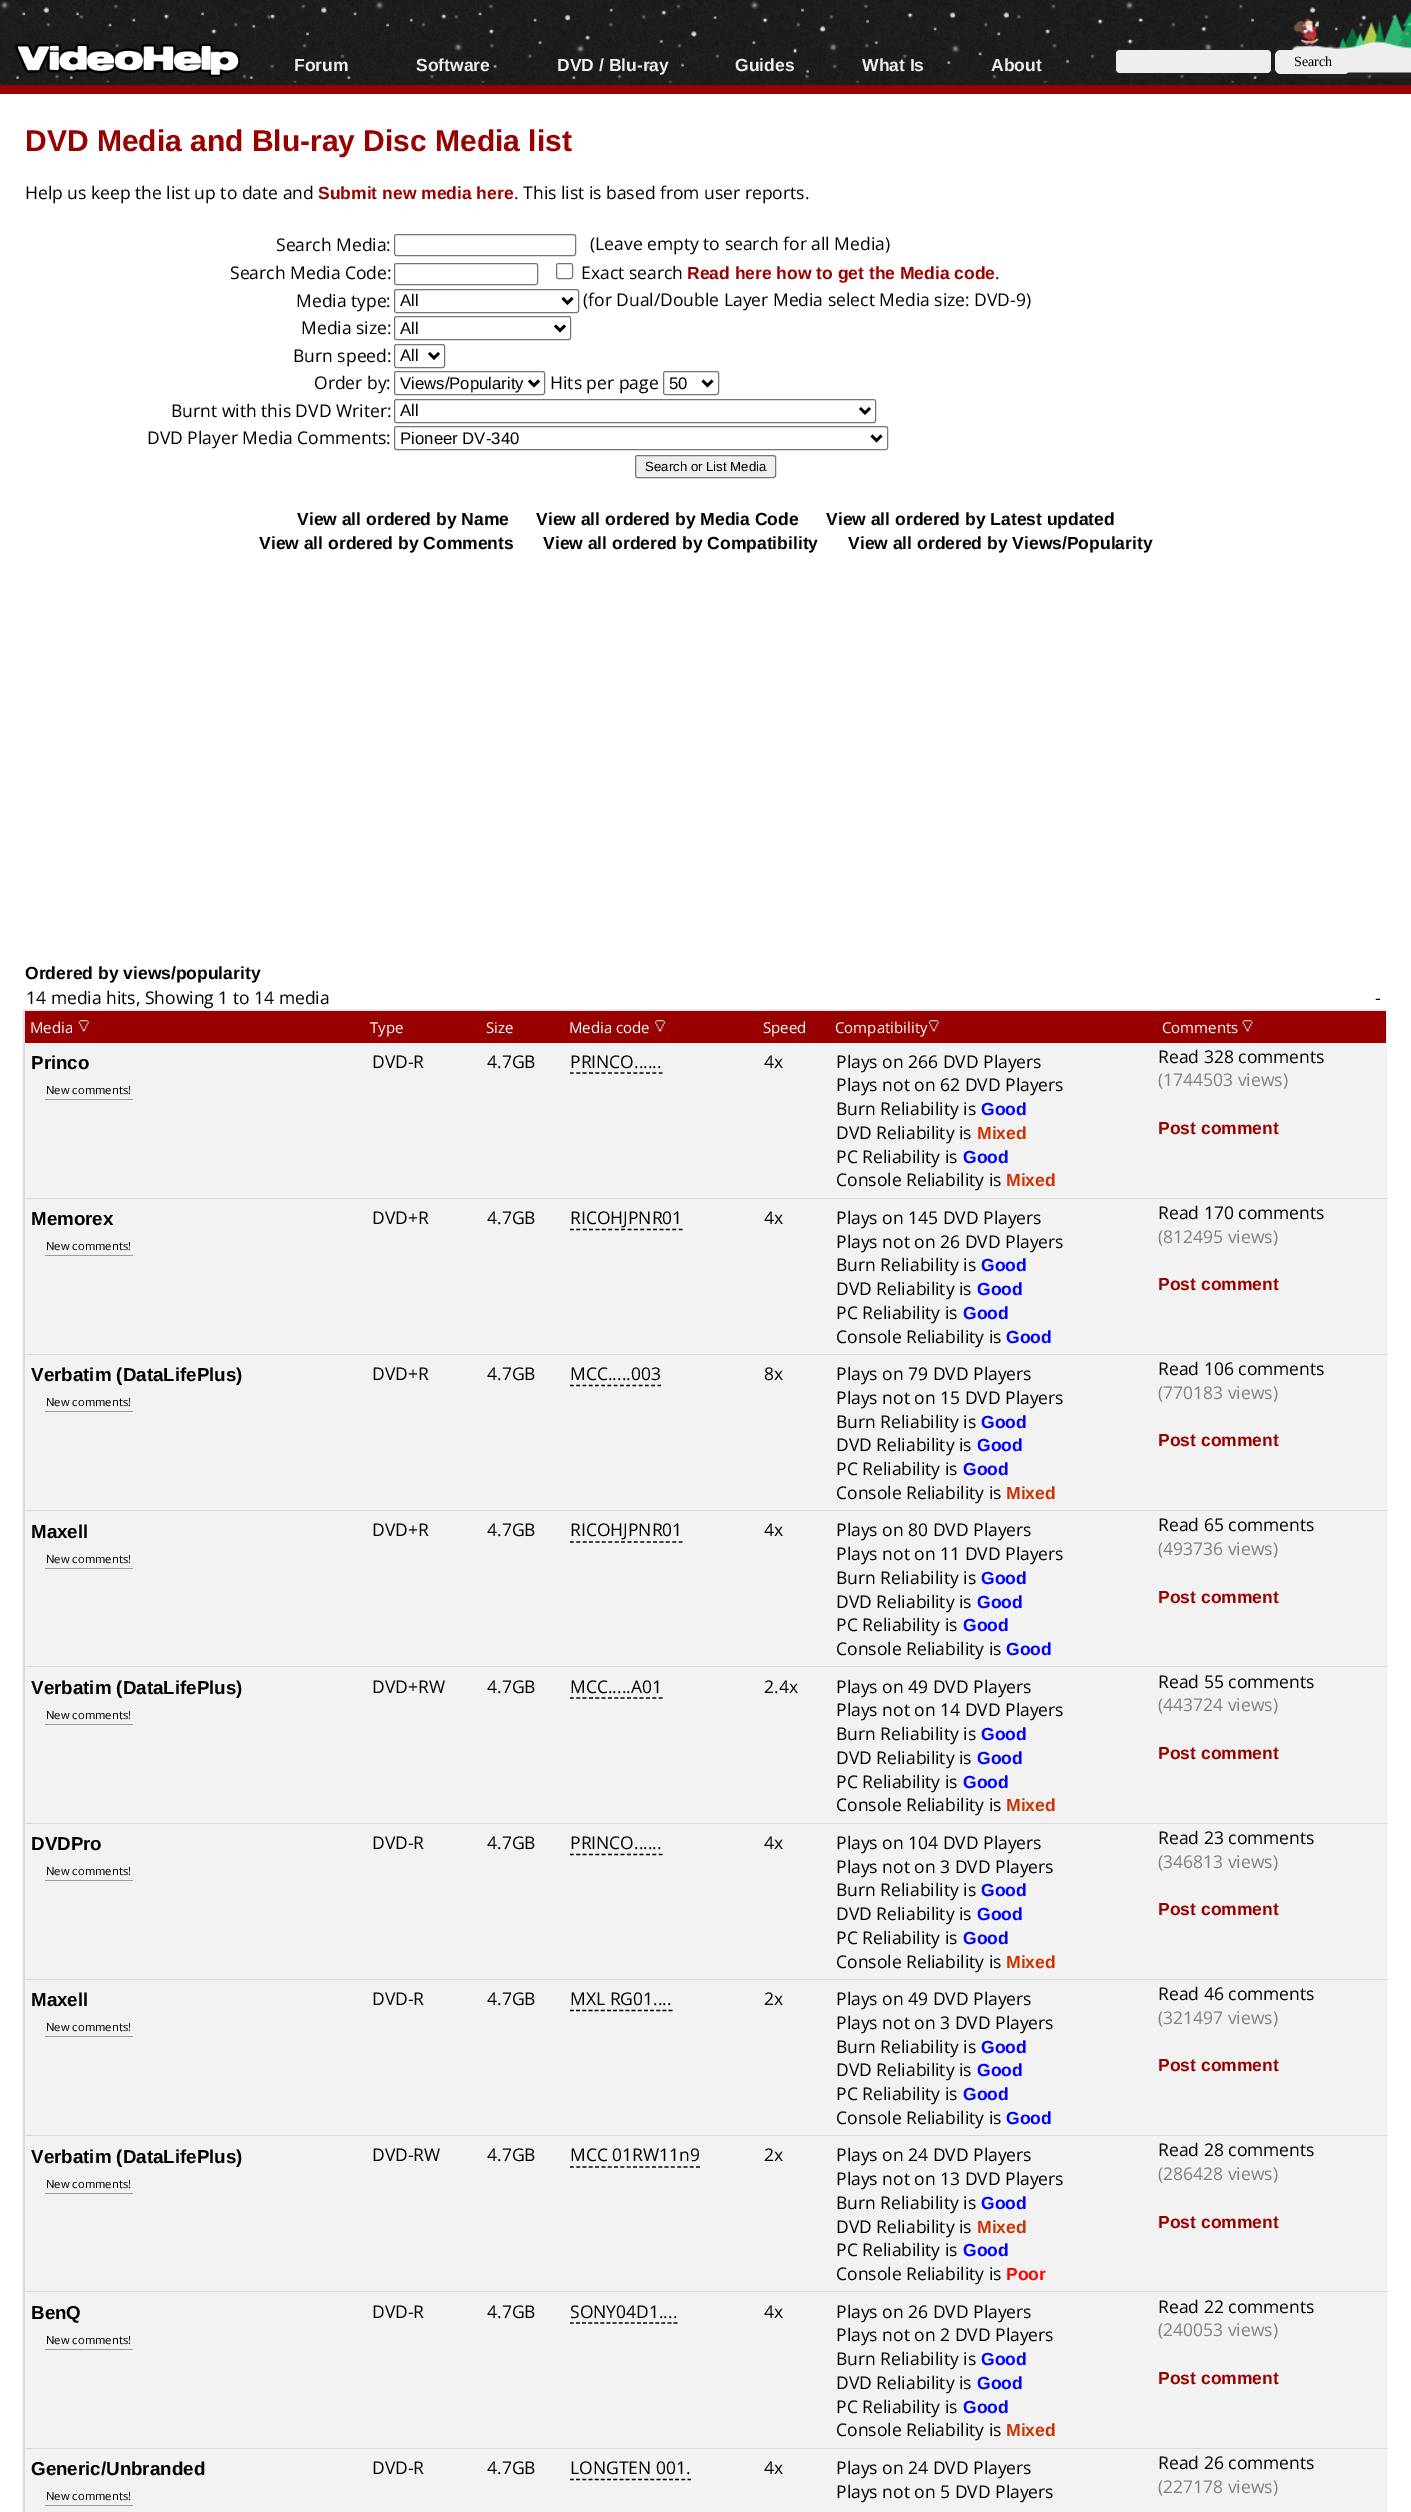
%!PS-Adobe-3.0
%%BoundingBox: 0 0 1411 2512
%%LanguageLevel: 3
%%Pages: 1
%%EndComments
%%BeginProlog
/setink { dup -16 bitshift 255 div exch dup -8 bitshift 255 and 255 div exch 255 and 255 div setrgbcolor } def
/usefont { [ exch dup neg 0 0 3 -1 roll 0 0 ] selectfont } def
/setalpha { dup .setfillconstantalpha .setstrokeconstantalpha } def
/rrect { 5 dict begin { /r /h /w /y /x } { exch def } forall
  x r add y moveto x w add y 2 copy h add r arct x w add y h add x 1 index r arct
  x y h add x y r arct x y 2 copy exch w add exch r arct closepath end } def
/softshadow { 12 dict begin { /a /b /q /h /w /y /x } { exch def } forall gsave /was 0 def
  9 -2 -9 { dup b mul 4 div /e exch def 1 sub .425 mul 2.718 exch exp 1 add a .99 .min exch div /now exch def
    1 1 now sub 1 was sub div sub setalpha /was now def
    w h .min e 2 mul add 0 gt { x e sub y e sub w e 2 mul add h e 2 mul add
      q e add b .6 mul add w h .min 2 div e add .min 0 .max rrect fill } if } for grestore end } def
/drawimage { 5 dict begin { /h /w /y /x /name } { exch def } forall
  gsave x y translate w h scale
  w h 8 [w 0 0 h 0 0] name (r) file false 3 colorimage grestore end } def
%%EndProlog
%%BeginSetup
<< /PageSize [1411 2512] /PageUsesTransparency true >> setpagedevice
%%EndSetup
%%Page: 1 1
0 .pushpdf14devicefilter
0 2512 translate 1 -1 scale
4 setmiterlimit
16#222222 setink
0 0 1411 2512 rectfill
(img2.raw) 0 0 1411 85 drawimage
(img1.raw) 0 1 1398 82 drawimage
16#990000 setink
0 85 1411 9 rectfill
(img3.raw) 15 43 225 34 drawimage
/LiberationSans-Bold 17.5 usefont
16#EEEEEE setink
[
    [(Forum) 294 71]
    [(Software) 416 71]
    [(DVD / Blu-ray) 557 71]
    [(Guides) 735 71]
    [(What Is) 862 71]
    [(About) 991 71]
] { aload pop moveto show } forall
1116 50 155 23 4 rrect fill
1275 50 75 24 6 rrect fill
/LiberationSerif-Regular 14 usefont
16#000000 setink
1294 66 moveto (Search) show
16#FFFFFF setink
0 94 1411 2418 rectfill
/LiberationSans-Bold 30 usefont
16#990000 setink
25 151 moveto (DVD Media and Blu-ray Disc Media list) show
/OpenSans-Regular 17.5 usefont
16#000000 setink
25 199 moveto (Help us keep the list up to date and) show
/LiberationSans-Bold 17.5 usefont
16#990000 setink
318 199 moveto (Submit new media here) show
/OpenSans-Regular 17.5 usefont
16#000000 setink
514 199 moveto (. This list is based from user reports.) show
276 251 moveto (Search Media:) show
16#767676 setink
394.5 234.5 181 21 2 rrect stroke
16#000000 setink
590 250 moveto (\(Leave empty to search for all Media\)) show
230 279 moveto (Search Media Code:) show
16#767676 setink
394.5 263.5 143 21 2 rrect stroke
556.5 263.5 16 15 2 rrect stroke
16#000000 setink
581 279 moveto (Exact search) show
/LiberationSans-Bold 17.5 usefont
16#990000 setink
687 279 moveto (Read here how to get the Media code) show
/OpenSans-Regular 17.5 usefont
16#000000 setink
995 279 moveto (.) show
296 307 moveto (Media type:) show
16#767676 setink
394.5 289.5 184 23 2 rrect stroke
16#000000 setink
2.5 setlinewidth
562.5 298 moveto 567.5 303 lineto 572.5 298 lineto stroke
/LiberationSans-Regular 16.75 usefont
400 306 moveto (All) show
/OpenSans-Regular 17.5 usefont
583 306 moveto (\(for Dual/Double Layer Media select Media size: DVD-9\)) show
301 334 moveto (Media size:) show
16#767676 setink
1 setlinewidth
394.5 316.5 176 23 2 rrect stroke
16#000000 setink
2.5 setlinewidth
555 325.5 moveto 560 330.5 lineto 565 325.5 lineto stroke
/LiberationSans-Regular 16.75 usefont
400 334 moveto (All) show
/OpenSans-Regular 17.5 usefont
293 362 moveto (Burn speed:) show
16#767676 setink
1 setlinewidth
394.5 344.5 50 23 2 rrect stroke
16#000000 setink
2.5 setlinewidth
429 353 moveto 434 358 lineto 439 353 lineto stroke
/LiberationSans-Regular 16.75 usefont
400 361 moveto (All) show
/OpenSans-Regular 17.5 usefont
314 389 moveto (Order by:) show
16#767676 setink
1 setlinewidth
394.5 371.5 150 23 2 rrect stroke
16#000000 setink
2.5 setlinewidth
529 380.5 moveto 534 385.5 lineto 539 380.5 lineto stroke
/LiberationSans-Regular 16.75 usefont
400 389 moveto (Views/Popularity) show
/OpenSans-Regular 17.5 usefont
550 389 moveto (Hits per page) show
16#767676 setink
1 setlinewidth
663.5 371.5 55 23 2 rrect stroke
16#000000 setink
2.5 setlinewidth
702.5 380.5 moveto 707.5 385.5 lineto 712.5 380.5 lineto stroke
/LiberationSans-Regular 16.75 usefont
669 389 moveto (50) show
/OpenSans-Regular 17.5 usefont
171 417 moveto (Burnt with this DVD Writer:) show
16#767676 setink
1 setlinewidth
394.5 399.5 481 23 2 rrect stroke
16#000000 setink
2.5 setlinewidth
860 408 moveto 865 413 lineto 870 408 lineto stroke
/LiberationSans-Regular 16.75 usefont
400 416 moveto (All) show
/OpenSans-Regular 17.5 usefont
147 444 moveto (DVD Player Media Comments:) show
16#767676 setink
1 setlinewidth
394.5 426.5 493 23 2 rrect stroke
16#000000 setink
2.5 setlinewidth
871.5 435.5 moveto 876.5 440.5 lineto 881.5 435.5 lineto stroke
/LiberationSans-Regular 16.75 usefont
400 444 moveto (Pioneer DV-340) show
16#EFEFEF setink
635.5 455.5 140 22 2 rrect gsave fill grestore
16#767676 setink
1 setlinewidth
stroke
/LiberationSans-Regular 13.25 usefont
16#000000 setink
645 471 moveto (Search or List Media) show
/LiberationSans-Bold 17.5 usefont
[
    [(View all ordered by Name) 297 525]
    [(View all ordered by Media Code) 536 525]
    [(View all ordered by Latest updated) 826 525]
    [(View all ordered by Comments) 259 549]
    [(View all ordered by Compatibility) 543 549]
    [(View all ordered by Views/Popularity) 848 549]
    [(Ordered by views/popularity) 25 979]
] { aload pop moveto show } forall
16#CBD0D6 setink
23 1010 1363 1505 0 1 0.87 softshadow
/OpenSans-Regular 17.5 usefont
16#000000 setink
26 1004 moveto (14 media hits, Showing 1 to 14 media) show
1375 1004 moveto (-) show
16#990000 setink
25 1011 1361 32 rectfill
/OpenSans-Regular 15 usefont
16#FFFFFF setink
30 1033 moveto (Media) show
(img4.raw) 78 1020 11 12 drawimage
[
    [(Type) 370 1033]
    [(Size) 486 1033]
    [(Media code) 569 1033]
] { aload pop moveto show } forall
(img5.raw) 654 1020 12 12 drawimage
763 1033 moveto (Speed) show
835 1033 moveto (Compatibility) show
(img4.raw) 928 1020 11 12 drawimage
1162 1033 moveto (Comments) show
(img6.raw) 1242 1020 11 12 drawimage
16#F2F2F2 setink
25 1043 1361 156 1 rrect fill
25 1043 340 156 1 rrect fill
16#D8D8D8 setink
25 1198 1363 1 rectfill
/LiberationSans-Bold 18.75 usefont
16#000000 setink
31 1069 moveto (Princo) show
/OpenSans-Regular 11.25 usefont
46 1094 moveto (New comments!) show
16#9C9C9C setink
45 1099 88 1 rectfill
/OpenSans-Regular 17.5 usefont
16#000000 setink
[
    [(DVD-R) 372 1068]
    [(4.7GB) 487 1068]
    [(PRINCO......) 570 1068]
] { aload pop moveto show } forall
1.2 setlinewidth
[3.75 2.59] 0 setdash
570 1073 moveto 662.5 1073 lineto stroke
[
    [(4x) 764 1068]
    [(Plays on 266 DVD Players) 836 1068]
    [(Plays not on 62 DVD Players) 836 1091]
    [(Burn Reliability is) 836 1115]
] { aload pop moveto show } forall
/LiberationSans-Bold 17.5 usefont
16#0000FF setink
981 1115 moveto (Good) show
/OpenSans-Regular 17.5 usefont
16#000000 setink
836 1139 moveto (DVD Reliability is) show
/LiberationSans-Bold 17.5 usefont
16#CC3300 setink
977 1139 moveto (Mixed) show
/OpenSans-Regular 17.5 usefont
16#000000 setink
836 1163 moveto (PC Reliability is) show
/LiberationSans-Bold 17.5 usefont
16#0000FF setink
963 1163 moveto (Good) show
/OpenSans-Regular 17.5 usefont
16#000000 setink
836 1186 moveto (Console Reliability is) show
/LiberationSans-Bold 17.5 usefont
16#CC3300 setink
1006 1186 moveto (Mixed) show
/OpenSans-Regular 17.5 usefont
16#000000 setink
1158 1063 moveto (Read 328 comments) show
16#808080 setink
1158 1086 moveto (\(1744503 views\)) show
/LiberationSans-Bold 17.5 usefont
16#990000 setink
1158 1134 moveto (Post comment) show
16#F2F2F2 setink
25 1199 1361 156 1 rrect fill
25 1199 340 156 1 rrect fill
16#D8D8D8 setink
25 1354 1363 1 rectfill
/LiberationSans-Bold 18.75 usefont
16#000000 setink
31 1225 moveto (Memorex) show
/OpenSans-Regular 11.25 usefont
46 1250 moveto (New comments!) show
16#9C9C9C setink
45 1255 88 1 rectfill
/OpenSans-Regular 17.5 usefont
16#000000 setink
[
    [(DVD+R) 372 1224]
    [(4.7GB) 487 1224]
    [(RICOHJPNR01) 570 1224]
] { aload pop moveto show } forall
[3.75 2.65] 0 setdash
570 1229.5 moveto 682.5 1229.5 lineto stroke
[
    [(4x) 764 1224]
    [(Plays on 145 DVD Players) 836 1224]
    [(Plays not on 26 DVD Players) 836 1248]
    [(Burn Reliability is) 836 1271]
] { aload pop moveto show } forall
/LiberationSans-Bold 17.5 usefont
16#0000FF setink
981 1271 moveto (Good) show
/OpenSans-Regular 17.5 usefont
16#000000 setink
836 1295 moveto (DVD Reliability is) show
/LiberationSans-Bold 17.5 usefont
16#0000FF setink
977 1295 moveto (Good) show
/OpenSans-Regular 17.5 usefont
16#000000 setink
836 1319 moveto (PC Reliability is) show
/LiberationSans-Bold 17.5 usefont
16#0000FF setink
963 1319 moveto (Good) show
/OpenSans-Regular 17.5 usefont
16#000000 setink
836 1343 moveto (Console Reliability is) show
/LiberationSans-Bold 17.5 usefont
16#0000FF setink
1006 1343 moveto (Good) show
/OpenSans-Regular 17.5 usefont
16#000000 setink
1158 1219 moveto (Read 170 comments) show
16#808080 setink
1158 1243 moveto (\(812495 views\)) show
/LiberationSans-Bold 17.5 usefont
16#990000 setink
1158 1290 moveto (Post comment) show
16#F2F2F2 setink
25 1355 1361 156 1 rrect fill
25 1355 340 156 1 rrect fill
16#D8D8D8 setink
25 1510 1363 1 rectfill
/LiberationSans-Bold 18.75 usefont
16#000000 setink
31 1381 moveto (Verbatim \(DataLifePlus\)) show
/OpenSans-Regular 11.25 usefont
46 1406 moveto (New comments!) show
16#9C9C9C setink
45 1411 88 1 rectfill
/OpenSans-Regular 17.5 usefont
16#000000 setink
[
    [(DVD+R) 372 1380]
    [(4.7GB) 487 1380]
    [(MCC.....003) 570 1380]
] { aload pop moveto show } forall
[3.75 2.5] 0 setdash
570 1385.5 moveto 661 1385.5 lineto stroke
[
    [(8x) 764 1380]
    [(Plays on 79 DVD Players) 836 1380]
    [(Plays not on 15 DVD Players) 836 1404]
    [(Burn Reliability is) 836 1428]
] { aload pop moveto show } forall
/LiberationSans-Bold 17.5 usefont
16#0000FF setink
981 1428 moveto (Good) show
/OpenSans-Regular 17.5 usefont
16#000000 setink
836 1451 moveto (DVD Reliability is) show
/LiberationSans-Bold 17.5 usefont
16#0000FF setink
977 1451 moveto (Good) show
/OpenSans-Regular 17.5 usefont
16#000000 setink
836 1475 moveto (PC Reliability is) show
/LiberationSans-Bold 17.5 usefont
16#0000FF setink
963 1475 moveto (Good) show
/OpenSans-Regular 17.5 usefont
16#000000 setink
836 1499 moveto (Console Reliability is) show
/LiberationSans-Bold 17.5 usefont
16#CC3300 setink
1006 1499 moveto (Mixed) show
/OpenSans-Regular 17.5 usefont
16#000000 setink
1158 1375 moveto (Read 106 comments) show
16#808080 setink
1158 1399 moveto (\(770183 views\)) show
/LiberationSans-Bold 17.5 usefont
16#990000 setink
1158 1446 moveto (Post comment) show
16#F2F2F2 setink
25 1511 1361 157 1 rrect fill
25 1511 340 157 1 rrect fill
16#D8D8D8 setink
25 1666 1363 1 rectfill
/LiberationSans-Bold 18.75 usefont
16#000000 setink
31 1538 moveto (Maxell) show
/OpenSans-Regular 11.25 usefont
46 1563 moveto (New comments!) show
16#9C9C9C setink
45 1568 88 1 rectfill
/OpenSans-Regular 17.5 usefont
16#000000 setink
[
    [(DVD+R) 372 1536]
    [(4.7GB) 487 1536]
    [(RICOHJPNR01) 570 1536]
] { aload pop moveto show } forall
[3.75 2.65] 0 setdash
570 1542 moveto 682.5 1542 lineto stroke
[
    [(4x) 764 1536]
    [(Plays on 80 DVD Players) 836 1536]
    [(Plays not on 11 DVD Players) 836 1560]
    [(Burn Reliability is) 836 1584]
] { aload pop moveto show } forall
/LiberationSans-Bold 17.5 usefont
16#0000FF setink
981 1584 moveto (Good) show
/OpenSans-Regular 17.5 usefont
16#000000 setink
836 1608 moveto (DVD Reliability is) show
/LiberationSans-Bold 17.5 usefont
16#0000FF setink
977 1608 moveto (Good) show
/OpenSans-Regular 17.5 usefont
16#000000 setink
836 1631 moveto (PC Reliability is) show
/LiberationSans-Bold 17.5 usefont
16#0000FF setink
963 1631 moveto (Good) show
/OpenSans-Regular 17.5 usefont
16#000000 setink
836 1655 moveto (Console Reliability is) show
/LiberationSans-Bold 17.5 usefont
16#0000FF setink
1006 1655 moveto (Good) show
/OpenSans-Regular 17.5 usefont
16#000000 setink
1158 1531 moveto (Read 65 comments) show
16#808080 setink
1158 1555 moveto (\(493736 views\)) show
/LiberationSans-Bold 17.5 usefont
16#990000 setink
1158 1603 moveto (Post comment) show
16#F2F2F2 setink
25 1668 1361 156 1 rrect fill
25 1668 340 156 1 rrect fill
16#D8D8D8 setink
25 1823 1363 1 rectfill
/LiberationSans-Bold 18.75 usefont
16#000000 setink
31 1694 moveto (Verbatim \(DataLifePlus\)) show
/OpenSans-Regular 11.25 usefont
46 1719 moveto (New comments!) show
16#9C9C9C setink
45 1724 88 1 rectfill
/OpenSans-Regular 17.5 usefont
16#000000 setink
[
    [(DVD+RW) 372 1693]
    [(4.7GB) 487 1693]
    [(MCC.....A01) 570 1693]
] { aload pop moveto show } forall
[3.75 2.59] 0 setdash
570 1698 moveto 662.5 1698 lineto stroke
[
    [(2.4x) 764 1693]
    [(Plays on 49 DVD Players) 836 1693]
    [(Plays not on 14 DVD Players) 836 1716]
    [(Burn Reliability is) 836 1740]
] { aload pop moveto show } forall
/LiberationSans-Bold 17.5 usefont
16#0000FF setink
981 1740 moveto (Good) show
/OpenSans-Regular 17.5 usefont
16#000000 setink
836 1764 moveto (DVD Reliability is) show
/LiberationSans-Bold 17.5 usefont
16#0000FF setink
977 1764 moveto (Good) show
/OpenSans-Regular 17.5 usefont
16#000000 setink
836 1788 moveto (PC Reliability is) show
/LiberationSans-Bold 17.5 usefont
16#0000FF setink
963 1788 moveto (Good) show
/OpenSans-Regular 17.5 usefont
16#000000 setink
836 1811 moveto (Console Reliability is) show
/LiberationSans-Bold 17.5 usefont
16#CC3300 setink
1006 1811 moveto (Mixed) show
/OpenSans-Regular 17.5 usefont
16#000000 setink
1158 1688 moveto (Read 55 comments) show
16#808080 setink
1158 1711 moveto (\(443724 views\)) show
/LiberationSans-Bold 17.5 usefont
16#990000 setink
1158 1759 moveto (Post comment) show
16#F2F2F2 setink
25 1824 1361 156 1 rrect fill
25 1824 340 156 1 rrect fill
16#D8D8D8 setink
25 1979 1363 1 rectfill
/LiberationSans-Bold 18.75 usefont
16#000000 setink
31 1850 moveto (DVDPro) show
/OpenSans-Regular 11.25 usefont
46 1875 moveto (New comments!) show
16#9C9C9C setink
45 1880 88 1 rectfill
/OpenSans-Regular 17.5 usefont
16#000000 setink
[
    [(DVD-R) 372 1849]
    [(4.7GB) 487 1849]
    [(PRINCO......) 570 1849]
] { aload pop moveto show } forall
570 1854.5 moveto 662.5 1854.5 lineto stroke
[
    [(4x) 764 1849]
    [(Plays on 104 DVD Players) 836 1849]
    [(Plays not on 3 DVD Players) 836 1873]
    [(Burn Reliability is) 836 1896]
] { aload pop moveto show } forall
/LiberationSans-Bold 17.5 usefont
16#0000FF setink
981 1896 moveto (Good) show
/OpenSans-Regular 17.5 usefont
16#000000 setink
836 1920 moveto (DVD Reliability is) show
/LiberationSans-Bold 17.5 usefont
16#0000FF setink
977 1920 moveto (Good) show
/OpenSans-Regular 17.5 usefont
16#000000 setink
836 1944 moveto (PC Reliability is) show
/LiberationSans-Bold 17.5 usefont
16#0000FF setink
963 1944 moveto (Good) show
/OpenSans-Regular 17.5 usefont
16#000000 setink
836 1968 moveto (Console Reliability is) show
/LiberationSans-Bold 17.5 usefont
16#CC3300 setink
1006 1968 moveto (Mixed) show
/OpenSans-Regular 17.5 usefont
16#000000 setink
1158 1844 moveto (Read 23 comments) show
16#808080 setink
1158 1868 moveto (\(346813 views\)) show
/LiberationSans-Bold 17.5 usefont
16#990000 setink
1158 1915 moveto (Post comment) show
16#F2F2F2 setink
25 1980 1361 156 1 rrect fill
25 1980 340 156 1 rrect fill
16#D8D8D8 setink
25 2135 1363 1 rectfill
/LiberationSans-Bold 18.75 usefont
16#000000 setink
31 2006 moveto (Maxell) show
/OpenSans-Regular 11.25 usefont
46 2031 moveto (New comments!) show
16#9C9C9C setink
45 2036 88 1 rectfill
/OpenSans-Regular 17.5 usefont
16#000000 setink
[
    [(DVD-R) 372 2005]
    [(4.7GB) 487 2005]
    [(MXL RG01....) 570 2005]
] { aload pop moveto show } forall
[3.75 2.42] 0 setdash
570 2010.5 moveto 672.5 2010.5 lineto stroke
[
    [(2x) 764 2005]
    [(Plays on 49 DVD Players) 836 2005]
    [(Plays not on 3 DVD Players) 836 2029]
    [(Burn Reliability is) 836 2053]
] { aload pop moveto show } forall
/LiberationSans-Bold 17.5 usefont
16#0000FF setink
981 2053 moveto (Good) show
/OpenSans-Regular 17.5 usefont
16#000000 setink
836 2076 moveto (DVD Reliability is) show
/LiberationSans-Bold 17.5 usefont
16#0000FF setink
977 2076 moveto (Good) show
/OpenSans-Regular 17.5 usefont
16#000000 setink
836 2100 moveto (PC Reliability is) show
/LiberationSans-Bold 17.5 usefont
16#0000FF setink
963 2100 moveto (Good) show
/OpenSans-Regular 17.5 usefont
16#000000 setink
836 2124 moveto (Console Reliability is) show
/LiberationSans-Bold 17.5 usefont
16#0000FF setink
1006 2124 moveto (Good) show
/OpenSans-Regular 17.5 usefont
16#000000 setink
1158 2000 moveto (Read 46 comments) show
16#808080 setink
1158 2024 moveto (\(321497 views\)) show
/LiberationSans-Bold 17.5 usefont
16#990000 setink
1158 2071 moveto (Post comment) show
16#F2F2F2 setink
25 2136 1361 157 1 rrect fill
25 2136 340 157 1 rrect fill
16#D8D8D8 setink
25 2291 1363 1 rectfill
/LiberationSans-Bold 18.75 usefont
16#000000 setink
31 2163 moveto (Verbatim \(DataLifePlus\)) show
/OpenSans-Regular 11.25 usefont
46 2188 moveto (New comments!) show
16#9C9C9C setink
45 2193 88 1 rectfill
/OpenSans-Regular 17.5 usefont
16#000000 setink
[
    [(DVD-RW) 372 2161]
    [(4.7GB) 487 2161]
    [(MCC 01RW11n9) 570 2161]
] { aload pop moveto show } forall
[3.75 2.56] 0 setdash
570 2167 moveto 700 2167 lineto stroke
[
    [(2x) 764 2161]
    [(Plays on 24 DVD Players) 836 2161]
    [(Plays not on 13 DVD Players) 836 2185]
    [(Burn Reliability is) 836 2209]
] { aload pop moveto show } forall
/LiberationSans-Bold 17.5 usefont
16#0000FF setink
981 2209 moveto (Good) show
/OpenSans-Regular 17.5 usefont
16#000000 setink
836 2233 moveto (DVD Reliability is) show
/LiberationSans-Bold 17.5 usefont
16#CC3300 setink
977 2233 moveto (Mixed) show
/OpenSans-Regular 17.5 usefont
16#000000 setink
836 2256 moveto (PC Reliability is) show
/LiberationSans-Bold 17.5 usefont
16#0000FF setink
963 2256 moveto (Good) show
/OpenSans-Regular 17.5 usefont
16#000000 setink
836 2280 moveto (Console Reliability is) show
/LiberationSans-Bold 17.5 usefont
16#FF0000 setink
1006 2280 moveto (Poor) show
/OpenSans-Regular 17.5 usefont
16#000000 setink
1158 2156 moveto (Read 28 comments) show
16#808080 setink
1158 2180 moveto (\(286428 views\)) show
/LiberationSans-Bold 17.5 usefont
16#990000 setink
1158 2228 moveto (Post comment) show
16#F2F2F2 setink
25 2293 1361 156 1 rrect fill
25 2293 340 156 1 rrect fill
16#D8D8D8 setink
25 2448 1363 1 rectfill
/LiberationSans-Bold 18.75 usefont
16#000000 setink
31 2319 moveto (BenQ) show
/OpenSans-Regular 11.25 usefont
46 2344 moveto (New comments!) show
16#9C9C9C setink
45 2349 88 1 rectfill
/OpenSans-Regular 17.5 usefont
16#000000 setink
[
    [(DVD-R) 372 2318]
    [(4.7GB) 487 2318]
    [(SONY04D1....) 570 2318]
] { aload pop moveto show } forall
[3.75 2.35] 0 setdash
570 2323 moveto 677.5 2323 lineto stroke
[
    [(4x) 764 2318]
    [(Plays on 26 DVD Players) 836 2318]
    [(Plays not on 2 DVD Players) 836 2341]
    [(Burn Reliability is) 836 2365]
] { aload pop moveto show } forall
/LiberationSans-Bold 17.5 usefont
16#0000FF setink
981 2365 moveto (Good) show
/OpenSans-Regular 17.5 usefont
16#000000 setink
836 2389 moveto (DVD Reliability is) show
/LiberationSans-Bold 17.5 usefont
16#0000FF setink
977 2389 moveto (Good) show
/OpenSans-Regular 17.5 usefont
16#000000 setink
836 2413 moveto (PC Reliability is) show
/LiberationSans-Bold 17.5 usefont
16#0000FF setink
963 2413 moveto (Good) show
/OpenSans-Regular 17.5 usefont
16#000000 setink
836 2436 moveto (Console Reliability is) show
/LiberationSans-Bold 17.5 usefont
16#CC3300 setink
1006 2436 moveto (Mixed) show
/OpenSans-Regular 17.5 usefont
16#000000 setink
1158 2313 moveto (Read 22 comments) show
16#808080 setink
1158 2336 moveto (\(240053 views\)) show
/LiberationSans-Bold 17.5 usefont
16#990000 setink
1158 2384 moveto (Post comment) show
16#F2F2F2 setink
25 2449 1361 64 1 rrect fill
25 2449 340 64 1 rrect fill
/LiberationSans-Bold 18.75 usefont
16#000000 setink
31 2475 moveto (Generic/Unbranded) show
/OpenSans-Regular 11.25 usefont
46 2500 moveto (New comments!) show
16#9C9C9C setink
45 2505 88 1 rectfill
/OpenSans-Regular 17.5 usefont
16#000000 setink
[
    [(DVD-R) 372 2474]
    [(4.7GB) 487 2474]
    [(LONGTEN 001.) 570 2474]
] { aload pop moveto show } forall
[3.75 2.44] 0 setdash
570 2479.5 moveto 691 2479.5 lineto stroke
[
    [(4x) 764 2474]
    [(Plays on 24 DVD Players) 836 2474]
    [(Plays not on 5 DVD Players) 836 2498]
    [(Read 26 comments) 1158 2469]
] { aload pop moveto show } forall
16#808080 setink
1158 2493 moveto (\(227178 views\)) show
.poppdf14devicefilter showpage
%%EOF
